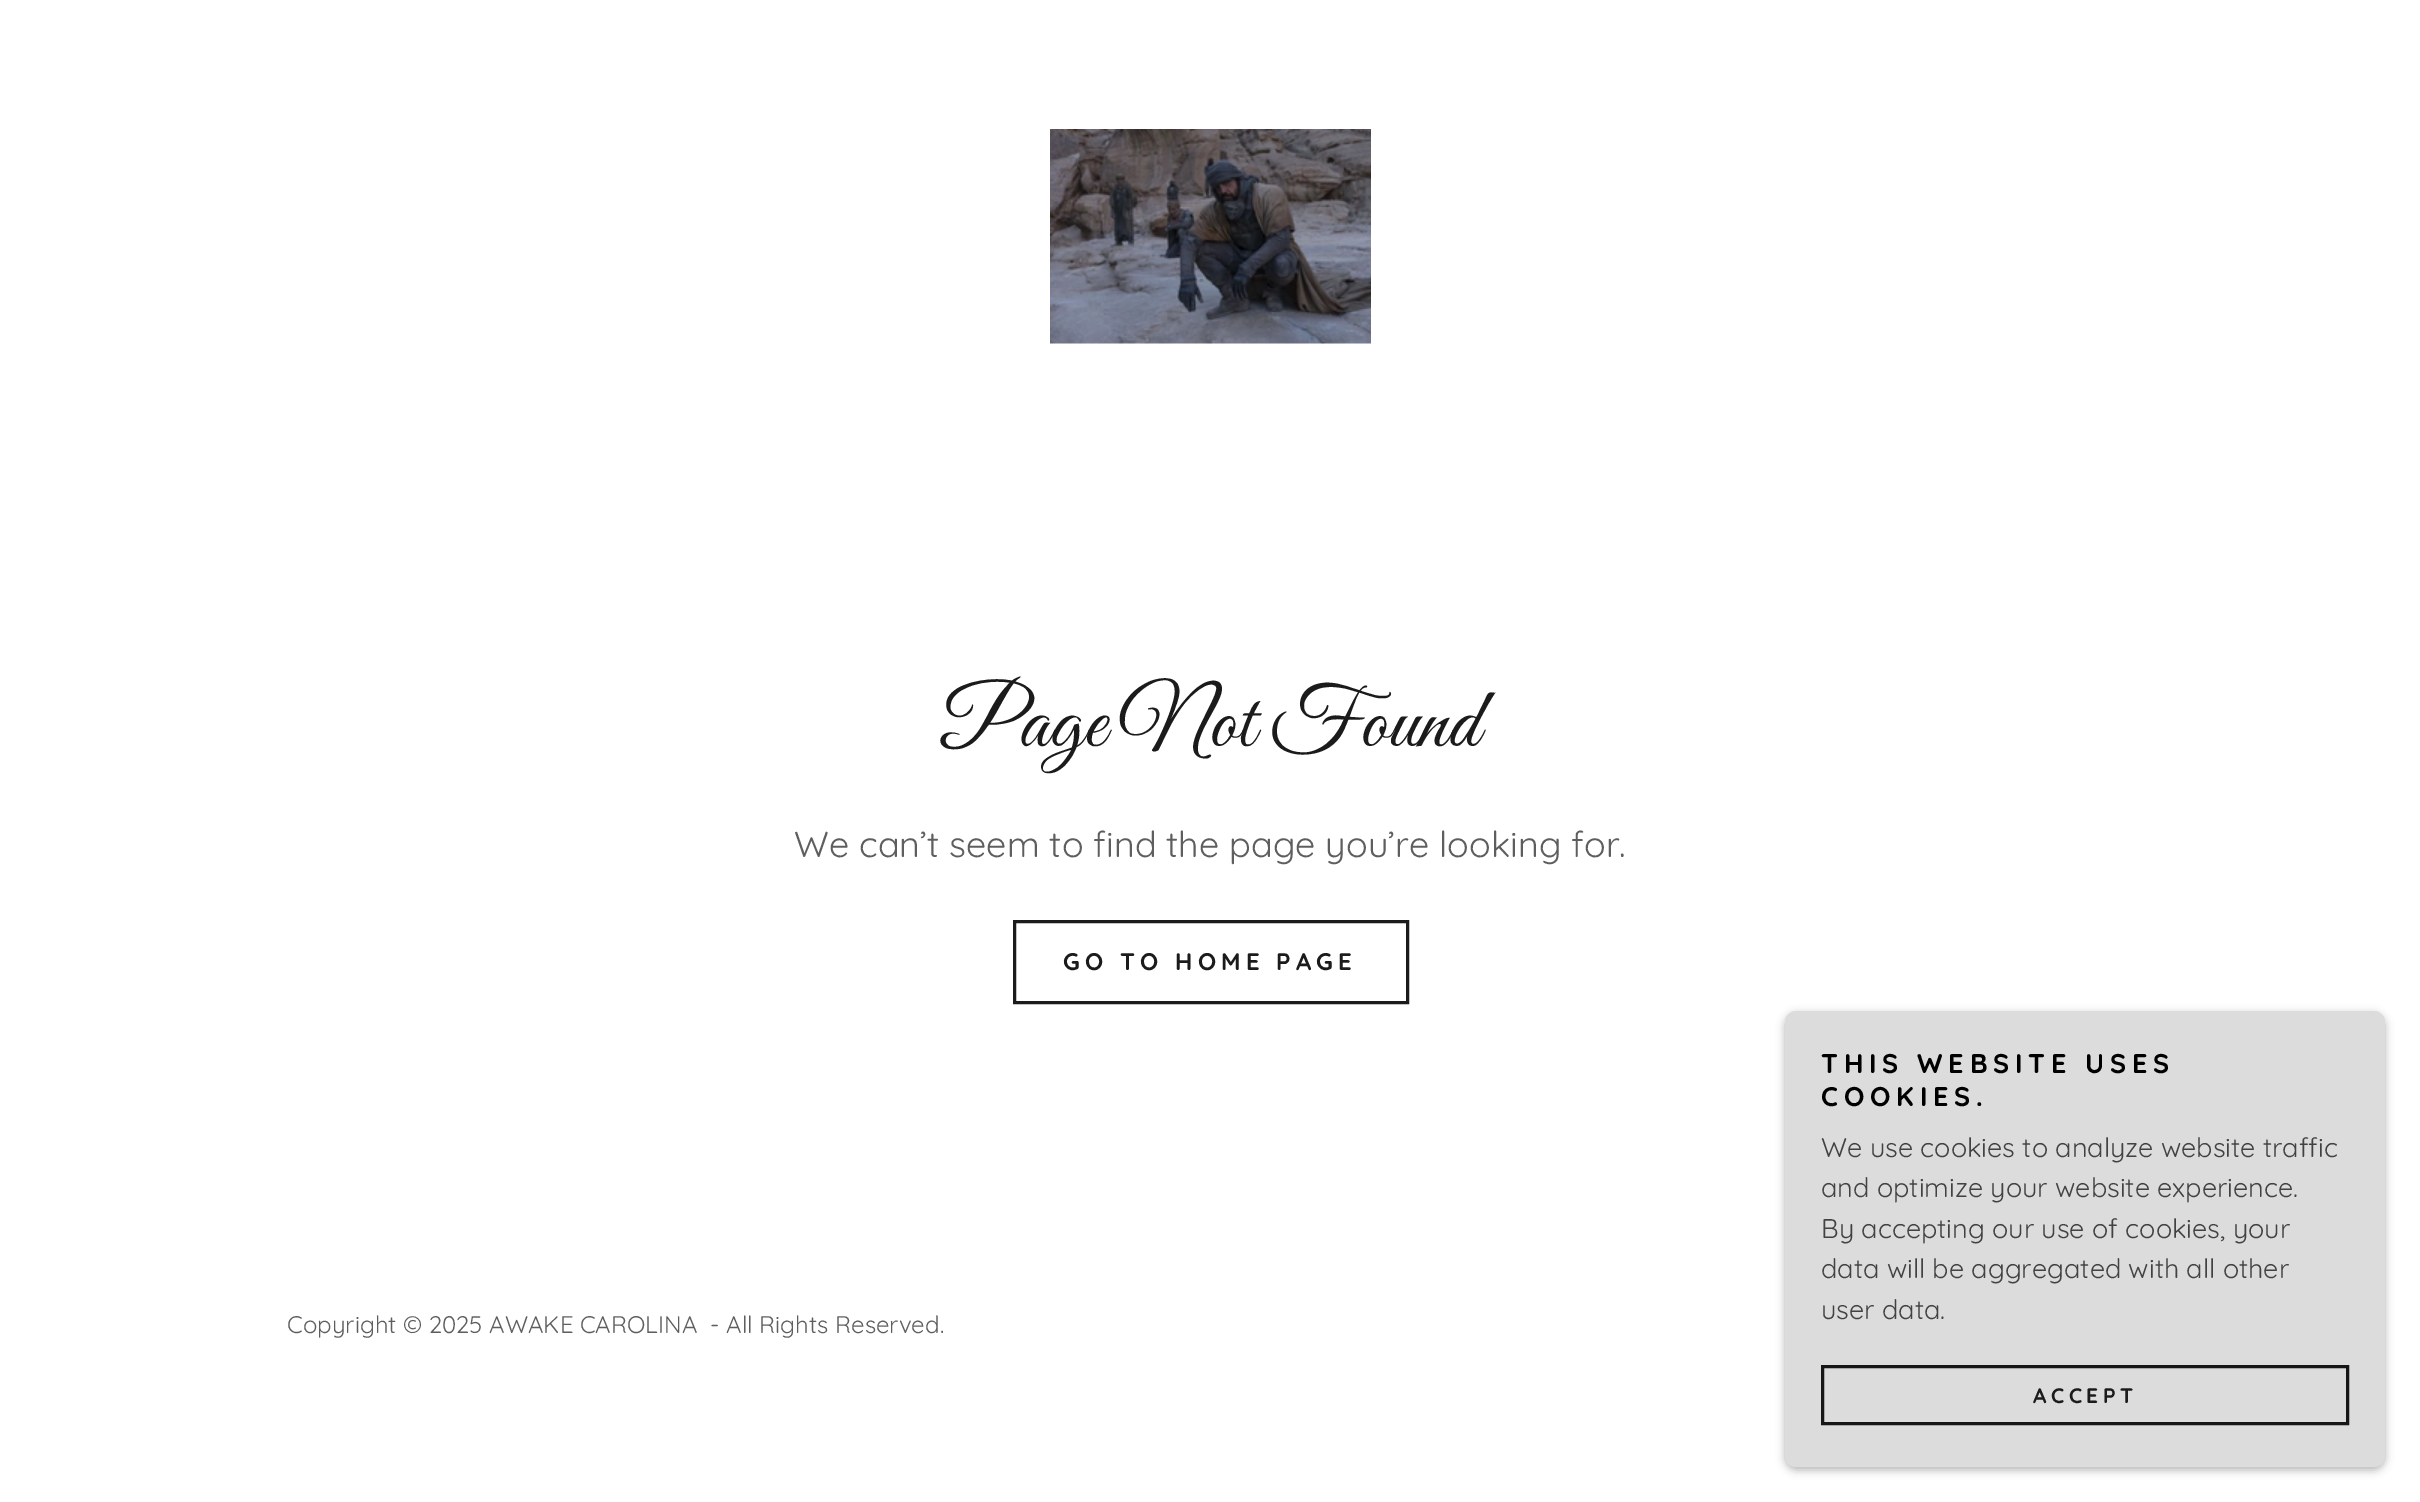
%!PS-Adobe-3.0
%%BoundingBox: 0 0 2420 1502
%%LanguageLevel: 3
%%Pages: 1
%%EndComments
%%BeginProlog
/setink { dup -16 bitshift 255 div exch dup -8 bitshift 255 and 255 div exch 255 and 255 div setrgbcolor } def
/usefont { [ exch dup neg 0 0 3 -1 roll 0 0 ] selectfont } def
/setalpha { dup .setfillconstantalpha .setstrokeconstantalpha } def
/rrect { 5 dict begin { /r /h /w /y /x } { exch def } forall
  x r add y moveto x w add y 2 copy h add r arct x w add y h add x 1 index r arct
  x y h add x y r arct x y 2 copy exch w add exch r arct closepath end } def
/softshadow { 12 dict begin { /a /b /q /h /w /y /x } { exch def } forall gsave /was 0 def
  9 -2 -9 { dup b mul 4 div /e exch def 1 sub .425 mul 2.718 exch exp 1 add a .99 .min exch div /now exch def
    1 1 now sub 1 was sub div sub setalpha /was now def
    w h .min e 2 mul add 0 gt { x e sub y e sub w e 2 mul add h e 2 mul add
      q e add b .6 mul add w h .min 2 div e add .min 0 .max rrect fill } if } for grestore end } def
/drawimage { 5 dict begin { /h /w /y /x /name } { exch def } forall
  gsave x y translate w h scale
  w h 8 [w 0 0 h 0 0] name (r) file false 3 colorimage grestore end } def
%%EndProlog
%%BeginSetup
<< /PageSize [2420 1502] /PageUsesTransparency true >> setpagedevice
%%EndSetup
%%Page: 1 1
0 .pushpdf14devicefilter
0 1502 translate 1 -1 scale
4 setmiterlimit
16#FFFFFF setink
0 0 2420 1502 rectfill
(img1.raw) 1050 129 321 215 drawimage
/GreatVibes-Regular 85.5 usefont
16#1B1B1B setink
940 746 moveto (Page Not Found) show
/Quicksand-Regular 36 usefont
16#5E5E5E setink
794 857 moveto (We can’t seem to find the page you’re looking for.) show
16#1B1B1B setink
3 setlinewidth
1014.5 921.5 393 81 rectstroke
/Quicksand-Bold 24 usefont
1063 970 moveto 5.1 0 (GO TO HOME PAGE) ashow
/Quicksand-Regular 24 usefont
16#5E5E5E setink
287 1333 moveto (Copyright © 2025 AWAKE CAROLINA  - All Rights Reserved.) show
16#000000 setink
1785 1014 600 456 11 4.5 0.3 softshadow
16#DCDCDC setink
1785 1011 600 456 11 rrect fill
/Quicksand-Bold 27 usefont
16#000000 setink
1821 1073 moveto 5.75 0 (THIS WEBSITE USES) ashow
1821 1106 moveto 5.75 0 (COOKIES.) ashow
/Quicksand-Regular 27 usefont
16#424242 setink
[
    [(We use cookies to analyze website traffic) 1821 1157]
    [(and optimize your website experience.) 1821 1197]
    [(By accepting our use of cookies, your) 1821 1238]
    [(data will be aggregated with all other) 1821 1278]
    [(user data.) 1821 1319]
] { aload pop moveto show } forall
16#161616 setink
1822.5 1366.5 525 57 rectstroke
/Quicksand-Bold 21 usefont
16#1B1B1B setink
2033 1403 moveto 4.5 0 (ACCEPT) ashow
.poppdf14devicefilter showpage
%%EOF
